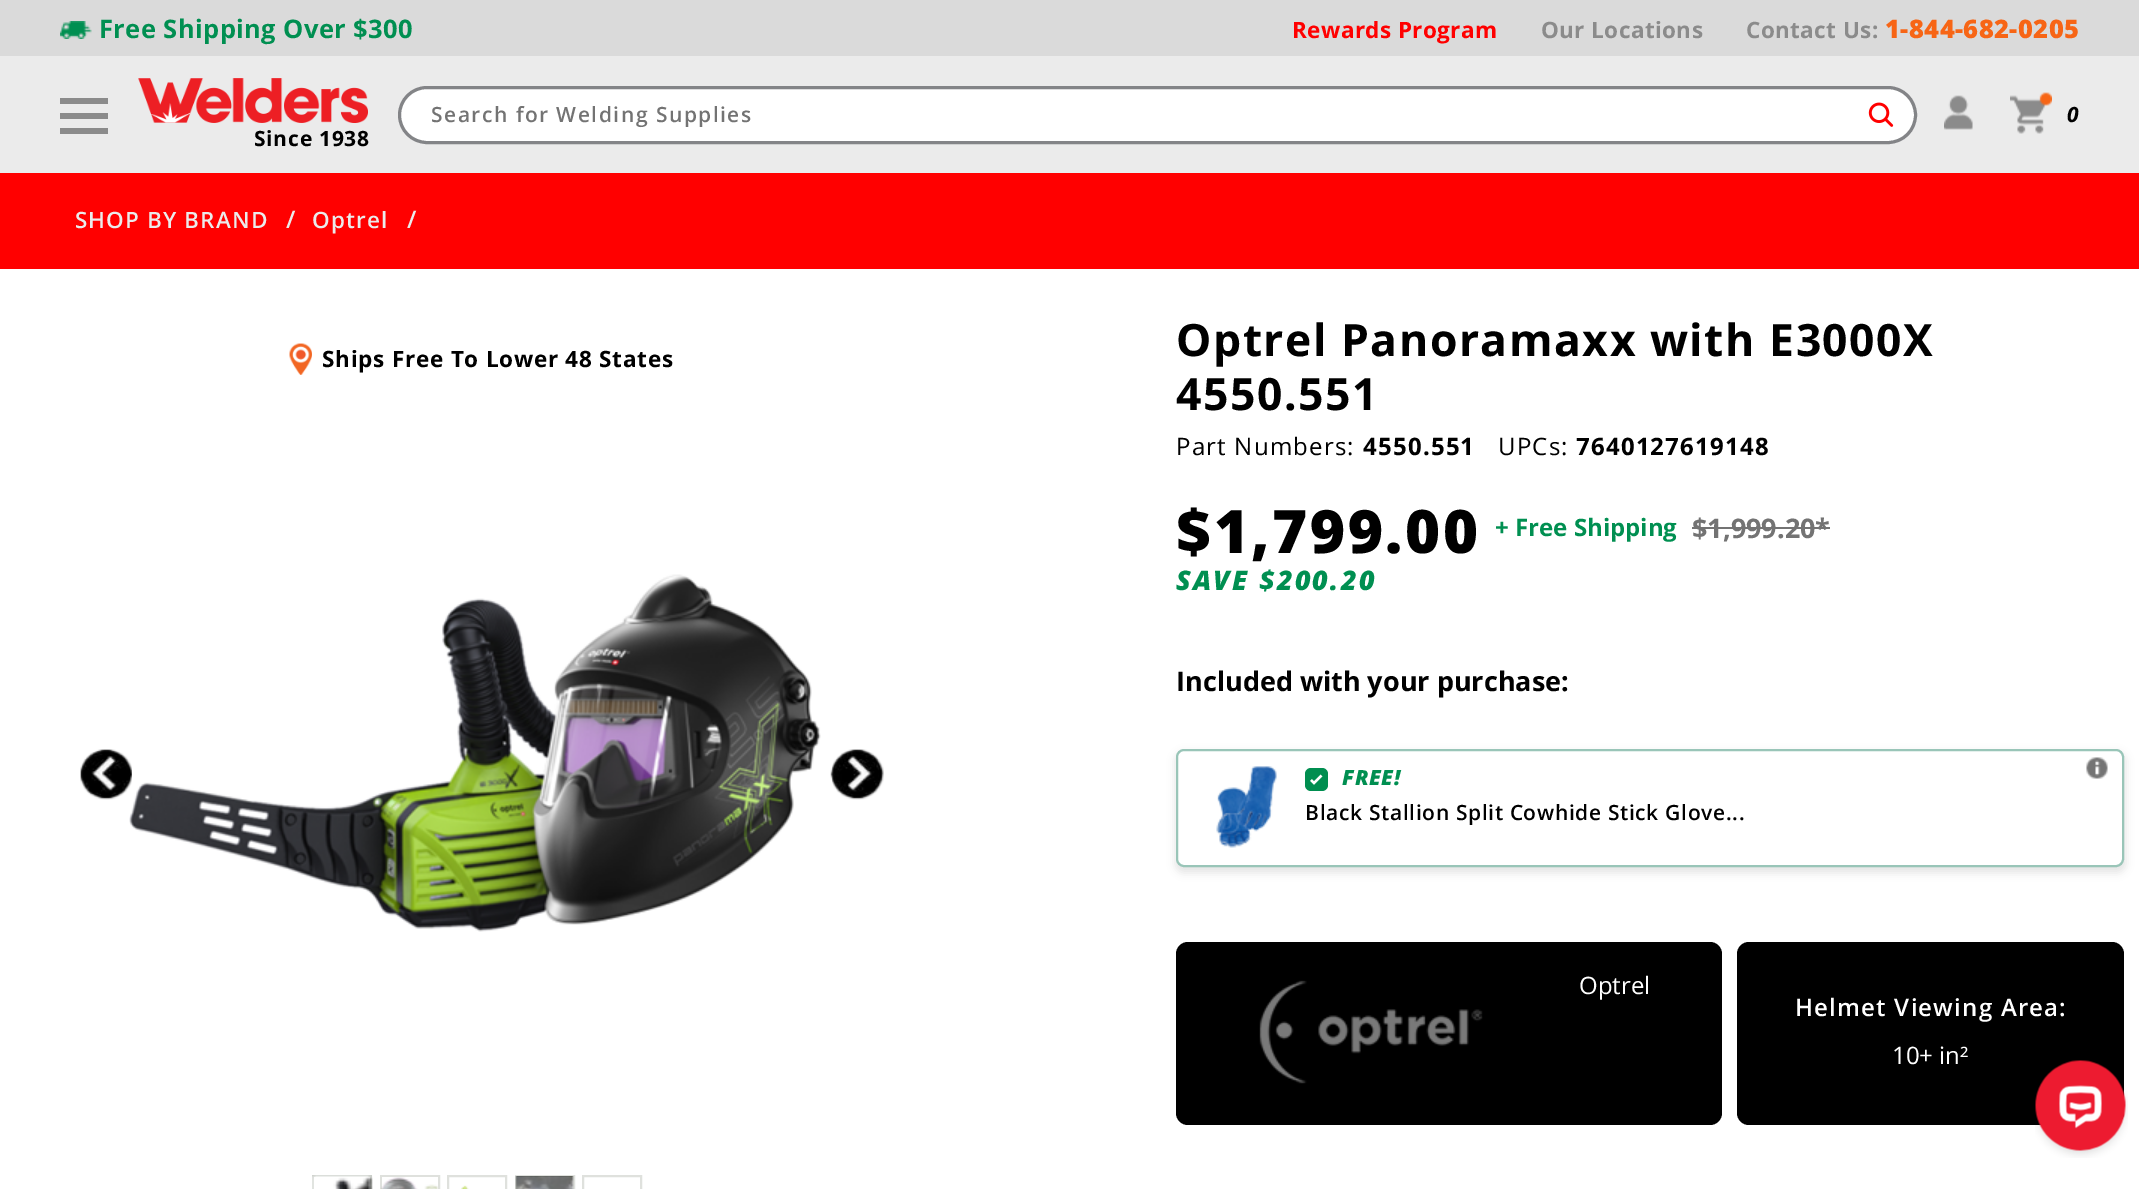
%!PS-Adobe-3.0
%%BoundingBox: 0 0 2139 1189
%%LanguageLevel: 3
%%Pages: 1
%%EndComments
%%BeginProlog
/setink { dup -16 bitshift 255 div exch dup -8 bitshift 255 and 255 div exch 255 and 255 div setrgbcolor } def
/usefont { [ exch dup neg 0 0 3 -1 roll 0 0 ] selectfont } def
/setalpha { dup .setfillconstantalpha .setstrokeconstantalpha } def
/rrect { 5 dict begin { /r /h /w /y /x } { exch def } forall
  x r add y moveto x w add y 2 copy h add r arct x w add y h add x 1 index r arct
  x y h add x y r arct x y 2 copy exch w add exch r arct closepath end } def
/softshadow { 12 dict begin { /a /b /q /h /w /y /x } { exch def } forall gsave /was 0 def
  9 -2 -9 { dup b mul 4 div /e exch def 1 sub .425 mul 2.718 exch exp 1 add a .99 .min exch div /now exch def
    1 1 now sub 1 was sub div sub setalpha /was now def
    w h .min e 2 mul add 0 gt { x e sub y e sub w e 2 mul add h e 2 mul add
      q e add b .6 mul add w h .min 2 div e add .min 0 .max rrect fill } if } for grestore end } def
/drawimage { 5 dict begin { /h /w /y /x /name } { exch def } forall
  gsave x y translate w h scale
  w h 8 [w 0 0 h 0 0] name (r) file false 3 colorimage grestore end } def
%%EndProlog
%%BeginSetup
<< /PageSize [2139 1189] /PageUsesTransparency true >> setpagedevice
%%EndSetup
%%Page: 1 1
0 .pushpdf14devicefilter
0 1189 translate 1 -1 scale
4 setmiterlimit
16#FFFFFF setink
0 0 2139 1189 rectfill
16#DADADA setink
0 0 2139 56 rectfill
(img1.raw) 60 21 32 18 drawimage
/OpenSans-Bold 25.5 usefont
16#008F51 setink
99 38 moveto 0.4 0 (Free Shipping Over $300) ashow
/OpenSans-Bold 22.5 usefont
16#FF0000 setink
1292 38 moveto 0.4 0 (Rewards Program) ashow
16#8B8B8B setink
1541 38 moveto 0.4 0 (Our Locations) ashow
1746 38 moveto 0.4 0 (Contact Us:) ashow
/OpenSans-ExtraBold 25.5 usefont
16#F76515 setink
1885 38 moveto 0.4 0 (1-844-682-0205) ashow
[
    [0 56 2139 117 16#EBEBEB]
    [60 113 48 6 16#8B8B8B]
    [60 98 48 6 16#8B8B8B]
    [60 128 48 6 16#8B8B8B]
] { aload pop setink rectfill } forall
16#FFFFFF setink
401 89 1513 52 26 rrect fill
16#838487 setink
3 setlinewidth
399.5 87.5 1516 55 27.5 rrect stroke
/OpenSans-SemiBold 21 usefont
16#737373 setink
431 122 moveto 1.5 0 (Search for Welding Supplies) ashow
(img2.raw) 1868 102 26 25 drawimage
(img3.raw) 1944 95 29 35 drawimage
(img4.raw) 2010 92 42 42 drawimage
/OpenSans-BoldItalic 21 usefont
16#000000 setink
2067 122 moveto (0) show
(img5.raw) 138 78 230 45 drawimage
/OpenSans-Bold 21 usefont
254 146 moveto 0.75 0 (Since 1938) ashow
16#FF0000 setink
0 173 2139 96 rectfill
/OpenSans-SemiBold 22.5 usefont
16#EBEBEB setink
75 228 moveto 1.1 0 (SHOP BY BRAND) ashow
/OpenSans-SemiBold 24 usefont
286 228 moveto (/) show
/OpenSans-SemiBold 22.5 usefont
312 228 moveto 1.1 0 (Optrel) ashow
/OpenSans-SemiBold 24 usefont
407 228 moveto (/) show
(img6.raw) 289 343 23 32 drawimage
/OpenSans-Bold 22.5 usefont
16#000000 setink
322 367 moveto 0.75 0 (Ships Free To Lower 48 States) ashow
(img8.raw) 129 574 692 358 drawimage
(img7.raw) 80 749 52 51 drawimage
(img9.raw) 830 749 54 51 drawimage
16#C9CDC7 setink
2 setlinewidth
313 1176 58 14 rectstroke
(img10.raw) 312 1175 61 14 drawimage
16#DFE1DD setink
381 1176 58 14 rectstroke
(img11.raw) 380 1177 58 12 drawimage
448 1176 58 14 rectstroke
(img12.raw) 461 1185 8 4 drawimage
516 1176 58 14 rectstroke
(img13.raw) 515 1176 59 13 drawimage
583 1176 58 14 rectstroke
/OpenSans-Bold 44.5 usefont
16#000000 setink
1176 356 moveto 1.5 0 (Optrel Panoramaxx with E3000X) ashow
1176 410 moveto 1.5 0 (4550.551) ashow
/OpenSans-Regular 24 usefont
1176 455 moveto 1.2 0 (Part Numbers:) ashow
/OpenSans-Bold 24 usefont
1363 455 moveto 1.2 0 (4550.551) ashow
/OpenSans-Regular 24 usefont
1498 455 moveto 1.2 0 (UPCs:) ashow
/OpenSans-Bold 24 usefont
1576 455 moveto 1.2 0 (7640127619148) ashow
/OpenSans-ExtraBold 60 usefont
1176 553 moveto 2.5 0 ($1,799.00) ashow
/OpenSans-Bold 24 usefont
16#008F51 setink
1495 536 moveto (+ Free Shipping) show
/OpenSans-Bold 27 usefont
16#737373 setink
1692 538 moveto ($1,999.20*) show
1692 527 138 2 rectfill
/OpenSans-ExtraBoldItalic 27 usefont
16#008F51 setink
1176 590 moveto 2.2 0 (SAVE $200.20) ashow
/OpenSans-Bold 27 usefont
16#000000 setink
1176 691 moveto (Included with your purchase:) show
gsave
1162 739 moveto 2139 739 lineto 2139 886 lineto 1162 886 lineto closepath 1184 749 moveto 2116 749 lineto 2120.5 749 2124 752.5 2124 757 curveto 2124 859 lineto 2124 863.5 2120.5 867 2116 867 curveto 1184 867 lineto 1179.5 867 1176 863.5 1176 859 curveto 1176 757 lineto 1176 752.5 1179.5 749 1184 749 curveto closepath eoclip newpath
1175 752 951 121 9 4 0.1 softshadow
grestore
16#99C5B8 setink
1177 750 946 116 7 rrect stroke
(img14.raw) 1216 766 61 82 drawimage
16#008E50 setink
1305 768 23 23 6 rrect fill
16#FFFFFF setink
2.2 setlinewidth
1311 780 moveto 1314 783 lineto 1321.5 775.5 lineto stroke
/OpenSans-ExtraBoldItalic 21 usefont
16#008F51 setink
1342 785 moveto 0.65 0 (FREE!) ashow
/OpenSans-SemiBold 21 usefont
16#000000 setink
1305 820 moveto 0.65 0 (Black Stallion Split Cowhide Stick Glove...) ashow
(img15.raw) 2086 757 22 22 drawimage
1176 942 546 183 12 rrect fill
(img16.raw) 1259 980 224 104 drawimage
/OpenSans-Regular 24 usefont
16#FFFFFF setink
1579 994 moveto (Optrel) show
16#000000 setink
1737 942 387 183 12 rrect fill
/OpenSans-SemiBold 24 usefont
16#FFFFFF setink
1795 1016 moveto 1.2 0 (Helmet Viewing Area:) ashow
/OpenSans-Regular 24 usefont
1892 1064 moveto (10+ in²) show
(img17.raw) 2035 1060 93 98 drawimage
.poppdf14devicefilter showpage
%%EOF
